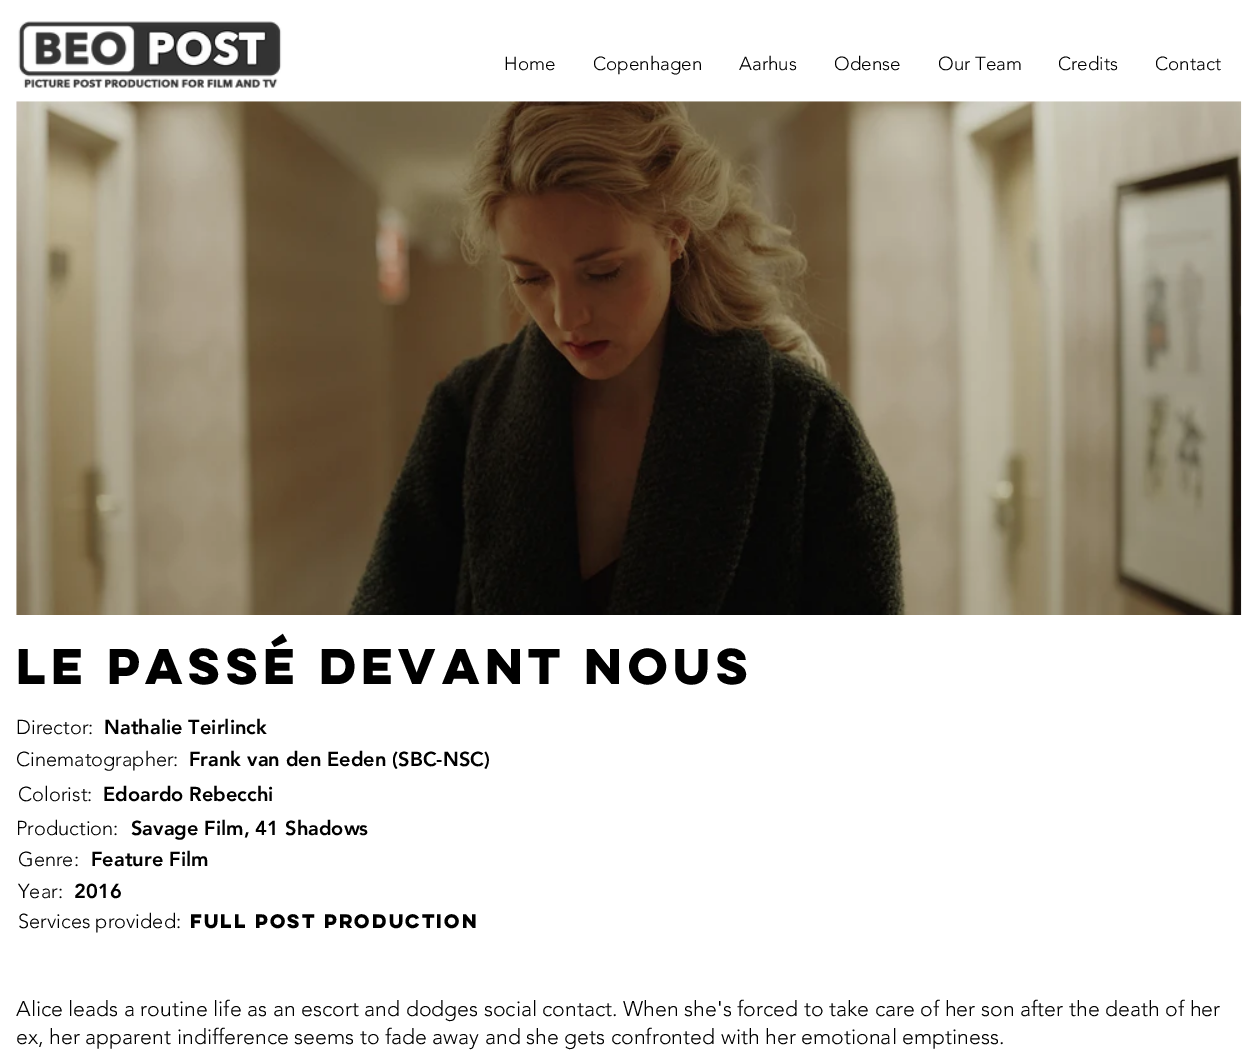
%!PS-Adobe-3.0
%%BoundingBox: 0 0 1257 1063
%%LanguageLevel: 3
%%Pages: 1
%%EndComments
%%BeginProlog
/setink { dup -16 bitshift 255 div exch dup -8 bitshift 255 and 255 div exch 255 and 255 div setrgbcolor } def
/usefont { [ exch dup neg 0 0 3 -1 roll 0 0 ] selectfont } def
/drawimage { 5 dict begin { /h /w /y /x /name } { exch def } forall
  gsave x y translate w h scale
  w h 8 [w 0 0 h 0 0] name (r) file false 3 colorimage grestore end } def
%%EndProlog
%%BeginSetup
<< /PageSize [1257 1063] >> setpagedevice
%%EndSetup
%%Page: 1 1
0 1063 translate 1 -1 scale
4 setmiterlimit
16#FFFFFF setink
0 0 1257 1063 rectfill
(img1.raw) 18 21 264 67 drawimage
/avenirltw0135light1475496-Light 18.75 usefont
16#000000 setink
[
    [(Home) 504 70]
    [(Copenhagen) 593 70]
    [(Aarhus) 739 70]
    [(Odense) 834 70]
    [(Our Team) 938 70]
    [(Credits) 1058 70]
    [(Contact) 1155 70]
] { aload pop moveto show } forall
(img2.raw) 16 101 1226 514 drawimage
/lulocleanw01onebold-Bold 45 usefont
16 684 moveto -4.5 0 (Le Passé Devant Nous) ashow
/avenirltw0135light1475496-Light 20 usefont
16 734 moveto (Director:) show
/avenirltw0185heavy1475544-Black 20 usefont
104 734 moveto (Nathalie Teirlinck) show
/avenirltw0135light1475496-Light 20 usefont
16 766 moveto (Cinematographer:) show
/avenirltw0185heavy1475544-Black 20 usefont
189 766 moveto (Frank van den Eeden \(SBC-NSC\)) show
/avenirltw0135light1475496-Light 20 usefont
18 801 moveto (Colorist:) show
/avenirltw0185heavy1475544-Black 20 usefont
103 801 moveto (Edoardo Rebecchi) show
/avenirltw0135light1475496-Light 20 usefont
16 835 moveto (Production:) show
/avenirltw0185heavy1475544-Black 20 usefont
131 835 moveto (Savage Film, 41 Shadows) show
/avenirltw0135light1475496-Light 20 usefont
18 866 moveto (Genre:) show
/avenirltw0185heavy1475544-Black 20 usefont
91 866 moveto (Feature Film) show
/avenirltw0135light1475496-Light 20 usefont
18 898 moveto (Year:) show
/avenirltw0185heavy1475544-Black 20 usefont
74 898 moveto (2016) show
/avenirltw0135light1475496-Light 20 usefont
18 928 moveto (Services provided:) show
/lulocleanw01onebold-Bold 17.5 usefont
190 928 moveto -1.75 0 (Full Post Production) ashow
/avenirltw0135light1475496-Light 21.25 usefont
16 1016 moveto (Alice leads a routine life as an escort and dodges social contact. When she's forced to take care of her son after the death of her) show
16 1044 moveto (ex, her apparent indifference seems to fade away and she gets confronted with her emotional emptiness.) show
showpage
%%EOF
